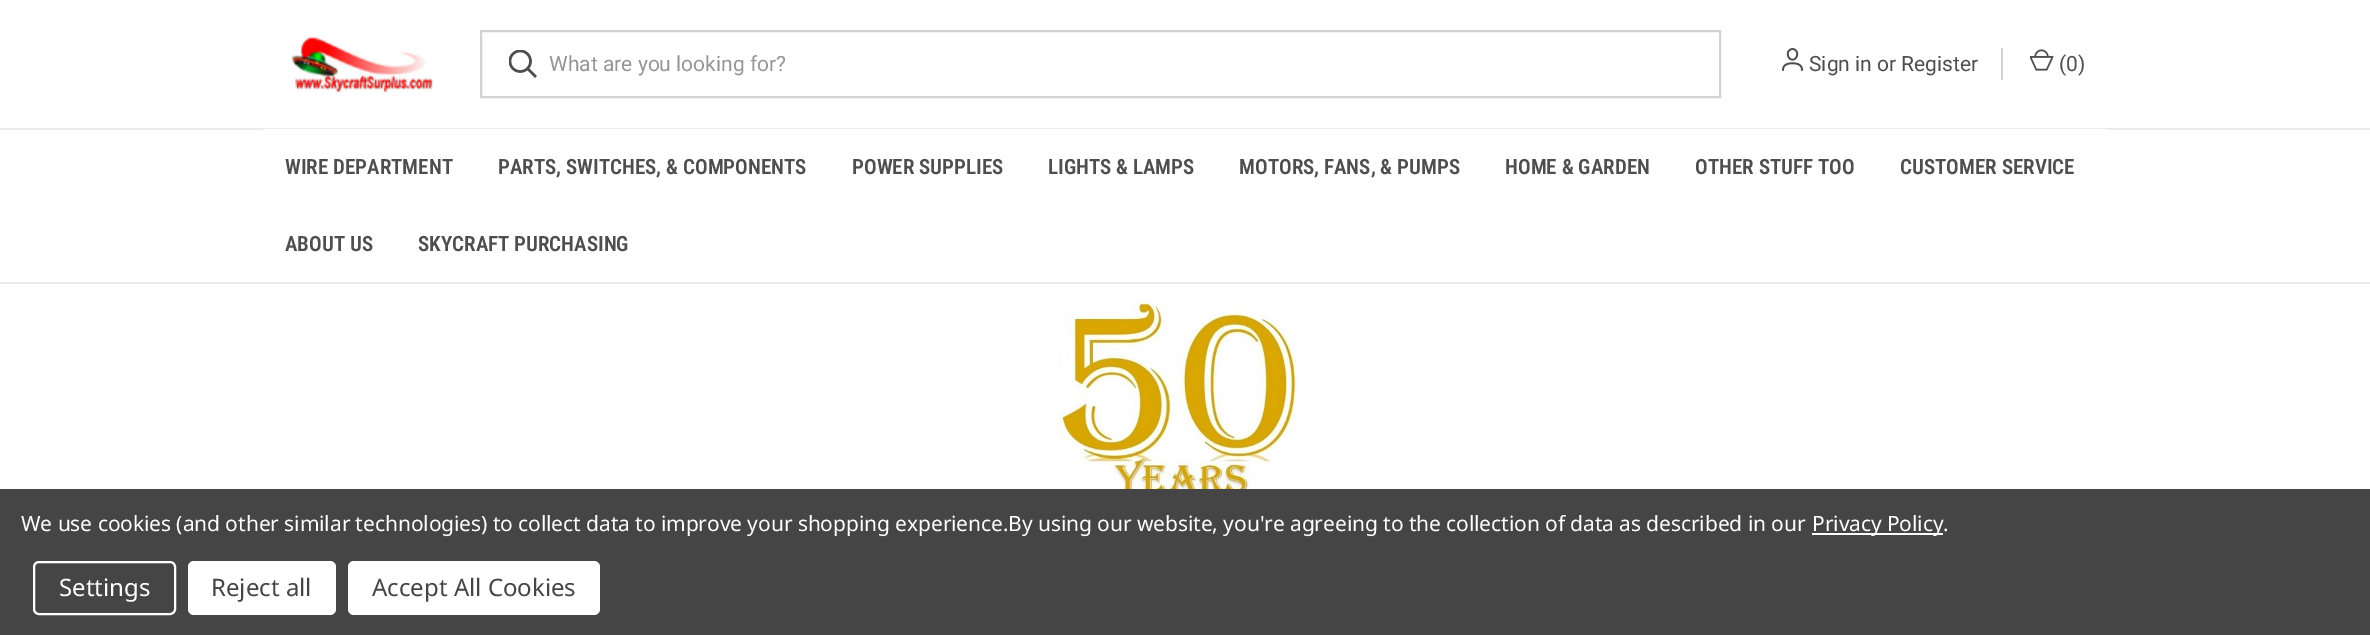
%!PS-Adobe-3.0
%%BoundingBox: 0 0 2370 635
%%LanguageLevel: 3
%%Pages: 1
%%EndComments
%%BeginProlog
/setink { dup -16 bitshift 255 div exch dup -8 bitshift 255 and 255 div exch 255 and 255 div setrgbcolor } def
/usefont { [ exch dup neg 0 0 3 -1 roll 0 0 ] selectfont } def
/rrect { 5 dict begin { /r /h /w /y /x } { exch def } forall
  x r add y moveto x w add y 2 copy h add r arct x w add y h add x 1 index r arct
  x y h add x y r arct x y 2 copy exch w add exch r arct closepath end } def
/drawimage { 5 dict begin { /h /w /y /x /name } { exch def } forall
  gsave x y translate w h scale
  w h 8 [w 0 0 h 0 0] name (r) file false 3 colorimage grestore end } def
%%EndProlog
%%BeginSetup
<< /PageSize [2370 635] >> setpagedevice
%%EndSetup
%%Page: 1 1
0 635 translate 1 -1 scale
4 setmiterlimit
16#FFFFFF setink
0 0 2370 635 rectfill
(img1.raw) 290 36 145 57 drawimage
16#D2D2D2 setink
2 setlinewidth
481 31 1239 66 rectstroke
(img2.raw) 509 50 28 28 drawimage
/Roboto-Regular 21 usefont
16#969696 setink
549 71 moveto (What are you looking for?) show
(img3.raw) 1781 48 23 23 drawimage
16#4E4E4E setink
1809 71 moveto (Sign in or Register) show
16#D2D2D2 setink
2001 48 2 32 rectfill
(img4.raw) 2030 49 24 22 drawimage
16#4E4E4E setink
2059 71 moveto (\(0\)) show
[
    [0 128 2370 2 16#EBEBEB]
    [0 282 2370 2 16#EBEBEB]
    [263 129 1845 1 16#FFFFFF]
] { aload pop setink rectfill } forall
/RobotoCondensed-SemiBold 21 usefont
16#4E4E4E setink
[
    [(WIRE DEPARTMENT) 285 174]
    [(PARTS, SWITCHES, & COMPONENTS) 498 174]
    [(POWER SUPPLIES) 852 174]
    [(LIGHTS & LAMPS) 1048 174]
    [(MOTORS, FANS, & PUMPS) 1239 174]
    [(HOME & GARDEN) 1505 174]
    [(OTHER STUFF TOO) 1695 174]
    [(CUSTOMER SERVICE) 1900 174]
    [(ABOUT US) 285 251]
    [(SKYCRAFT PURCHASING) 418 251]
] { aload pop moveto show } forall
(img5.raw) 1056 299 242 190 drawimage
16#454545 setink
0 489 2370 146 rectfill
/NotoSans-Regular 21 usefont
16#FFFFFF setink
21 531 moveto -0.08 0 (We use cookies \(and other similar technologies\) to collect data to improve your shopping experience.By using our website, you're agreeing to the collection of data as described in our) ashow
1812 533 131 2 rectfill
1812 531 moveto -0.08 0 (Privacy Policy.) ashow
34 562 141 52 5 rrect stroke
/NotoSans-Regular 24 usefont
59 596 moveto (Settings) show
188 561 148 54 6 rrect fill
16#454545 setink
211 596 moveto (Reject all) show
16#FFFFFF setink
348 561 252 54 6 rrect fill
16#454545 setink
372 596 moveto (Accept All Cookies) show
showpage
%%EOF
